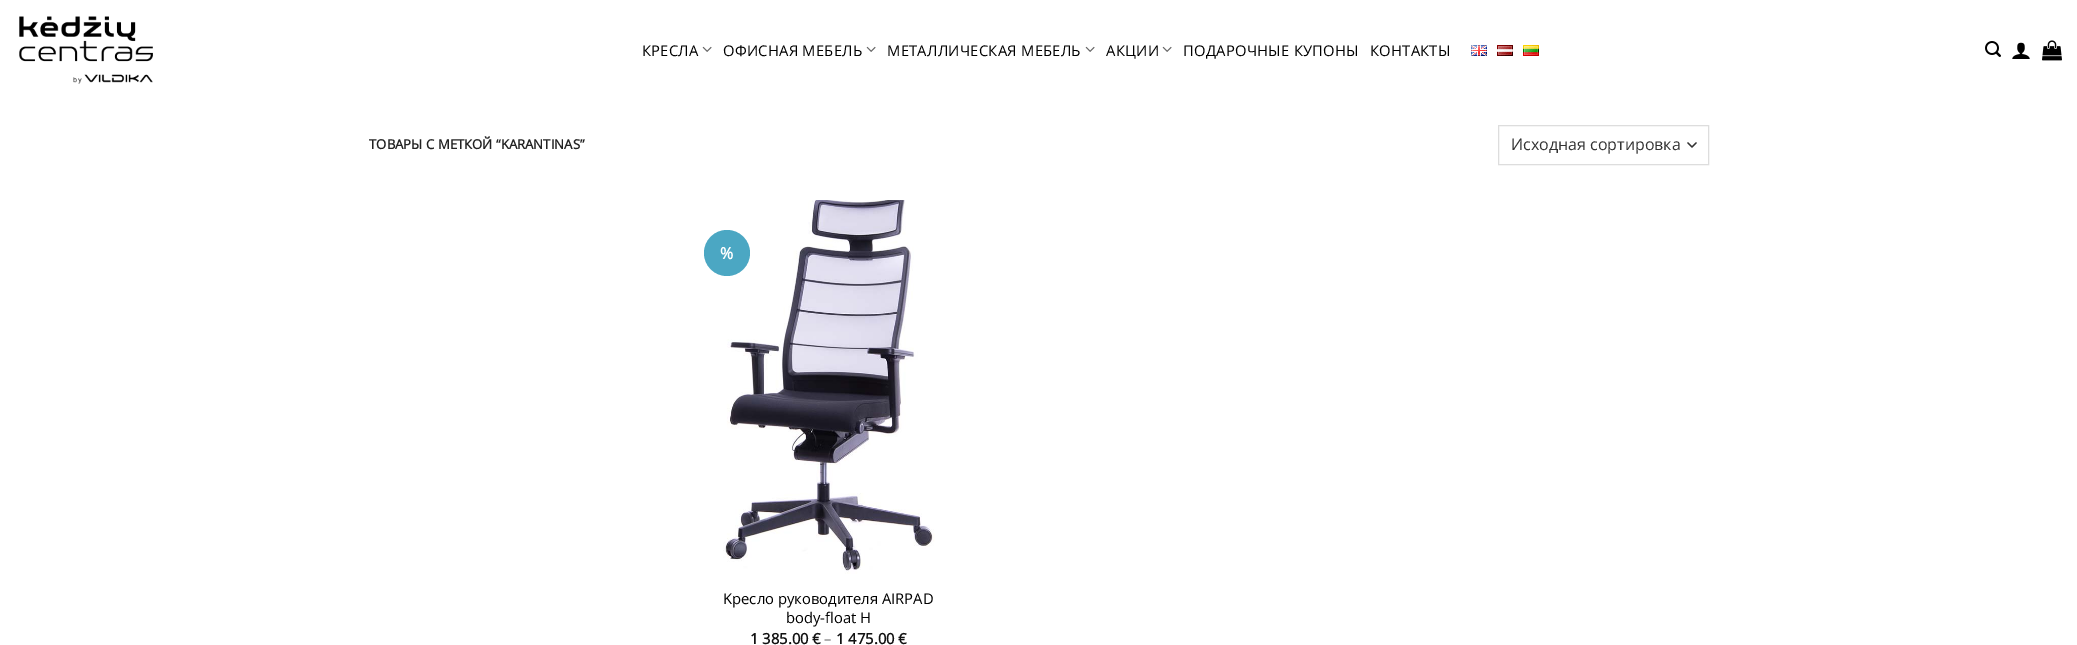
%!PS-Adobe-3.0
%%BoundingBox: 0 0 2077 645
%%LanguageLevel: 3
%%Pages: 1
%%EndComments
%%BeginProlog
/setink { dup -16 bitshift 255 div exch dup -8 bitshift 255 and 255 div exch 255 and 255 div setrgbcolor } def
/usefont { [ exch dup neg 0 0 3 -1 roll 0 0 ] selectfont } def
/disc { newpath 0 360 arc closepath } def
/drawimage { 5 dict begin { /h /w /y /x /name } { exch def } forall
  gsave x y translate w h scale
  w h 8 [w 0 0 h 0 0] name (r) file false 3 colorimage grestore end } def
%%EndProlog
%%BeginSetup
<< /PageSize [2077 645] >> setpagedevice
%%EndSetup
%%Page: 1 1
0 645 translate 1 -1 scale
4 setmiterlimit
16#FFFFFF setink
0 0 2077 645 rectfill
(img1.raw) 19 16 134 68 drawimage
/OpenSans-Regular 14.8 usefont
16#000000 setink
642 56 moveto 0.25 0 (КРЕСЛА) ashow
(img2.raw) 702 46 10 6 drawimage
723 56 moveto 0.25 0 (ОФИСНАЯ МЕБЕЛЬ) ashow
(img2.raw) 866 46 10 6 drawimage
887 56 moveto 0.25 0 (МЕТАЛЛИЧЕСКАЯ МЕБЕЛЬ) ashow
(img2.raw) 1085 46 10 6 drawimage
1106 56 moveto 0.25 0 (АКЦИИ) ashow
(img2.raw) 1162 46 10 6 drawimage
1183 56 moveto 0.25 0 (ПОДАРОЧНЫЕ КУПОНЫ) ashow
1370 56 moveto 0.25 0 (КОНТАКТЫ) ashow
(img3.raw) 1471 45 16 11 drawimage
(img4.raw) 1497 45 16 11 drawimage
(img5.raw) 1523 45 16 11 drawimage
(img6.raw) 1985 41 16 16 drawimage
(img7.raw) 2012 42 18 17 drawimage
(img8.raw) 2042 40 20 21 drawimage
/OpenSans-Bold 13.2 usefont
16#222222 setink
369 149 moveto (ТОВАРЫ С МЕТКОЙ “KARANTINAS”) show
16#333333 setink
1.3 setlinewidth
1 setlinecap
1 setlinejoin
1688 143 moveto 1692 147 lineto 1696 143 lineto stroke
16#DDDDDD setink
1 setlinewidth
0 setlinecap
0 setlinejoin
1498.5 125.5 210 39 rectstroke
/OpenSans-Regular 16 usefont
16#333333 setink
1511 150 moveto (Исходная сортировка) show
(img9.raw) 723 200 212 374 drawimage
16#4BA7C3 setink
727 253 23 disc fill
/OpenSans-Bold 16 usefont
16#FFFFFF setink
720 259 moveto (%) show
/OpenSans-Regular 14.8 usefont
16#000000 setink
723 604 moveto (Kресло руководителя AIRPAD) show
786 623 moveto (body-float H) show
/OpenSans-Bold 14.8 usefont
16#111111 setink
750 644 moveto (1 385.00 €) show
/OpenSans-Regular 14.8 usefont
16#6D6D6D setink
824 644 moveto (–) show
/OpenSans-Bold 14.8 usefont
16#111111 setink
836 644 moveto (1 475.00 €) show
showpage
%%EOF
